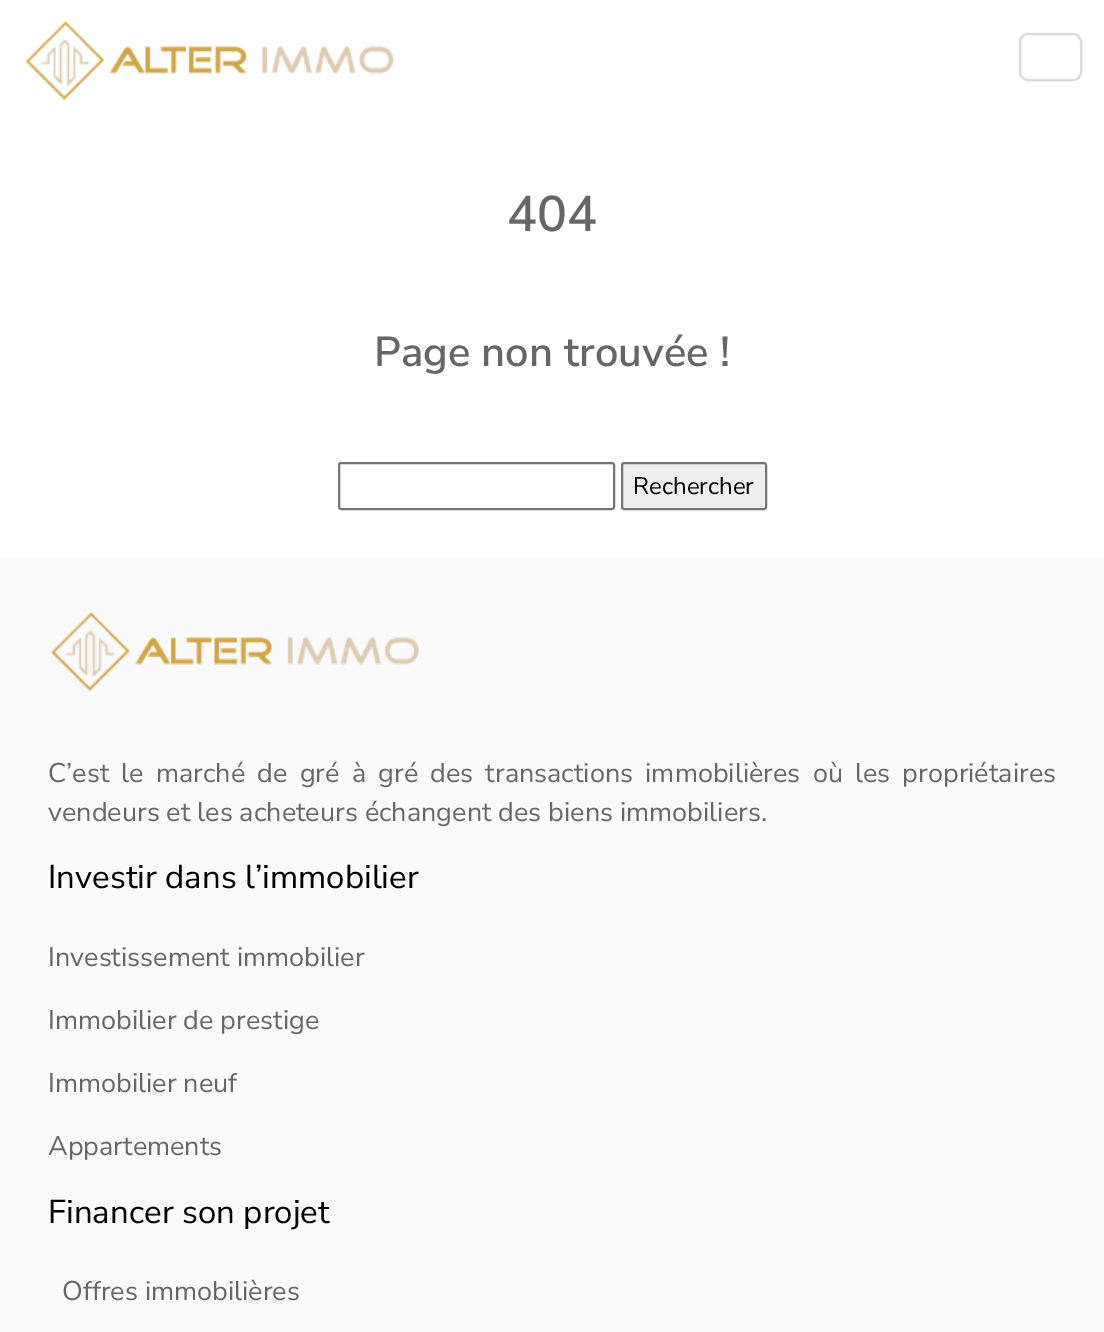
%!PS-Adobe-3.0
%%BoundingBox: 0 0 1104 1332
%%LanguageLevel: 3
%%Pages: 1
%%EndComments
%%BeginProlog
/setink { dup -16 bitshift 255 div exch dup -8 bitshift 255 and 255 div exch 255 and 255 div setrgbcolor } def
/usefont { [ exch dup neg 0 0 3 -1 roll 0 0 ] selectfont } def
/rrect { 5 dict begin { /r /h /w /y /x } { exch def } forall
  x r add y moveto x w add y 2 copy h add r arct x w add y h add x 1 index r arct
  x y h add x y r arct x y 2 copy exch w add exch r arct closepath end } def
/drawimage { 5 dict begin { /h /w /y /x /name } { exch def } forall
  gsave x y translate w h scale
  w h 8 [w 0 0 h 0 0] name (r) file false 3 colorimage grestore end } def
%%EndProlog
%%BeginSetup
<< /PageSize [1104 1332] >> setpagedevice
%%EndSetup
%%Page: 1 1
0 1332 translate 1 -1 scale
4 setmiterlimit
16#FFFFFF setink
0 0 1104 1332 rectfill
(img1.raw) 25 20 369 81 drawimage
16#D9D9D9 setink
2 setlinewidth
1020 34 61 46 8 rrect stroke
/NunitoSans-SemiBold 50 usefont
16#666666 setink
507 231 moveto (404) show
/NunitoSans-SemiBold 41.75 usefont
374 366 moveto (Page non trouvée !) show
16#767676 setink
339 463 275 46 2 rrect stroke
16#EFEFEF setink
622 463 144 46 2 rrect gsave fill grestore
16#767676 setink
stroke
/NunitoSans-Regular 24 usefont
16#000000 setink
633 494 moveto (Rechercher) show
16#FAFAFA setink
0 558 1104 774 rectfill
(img2.raw) 50 611 369 81 drawimage
/NunitoSans-Regular 27 usefont
16#666666 setink
48 782 moveto 5.25 0 32 (C’est le marché de gré à gré des transactions immobilières où les propriétaires) widthshow
48 821 moveto (vendeurs et les acheteurs échangent des biens immobiliers.) show
/NunitoSans-Regular 33 usefont
16#000000 setink
48 888 moveto (Investir dans l’immobilier) show
/NunitoSans-Regular 27 usefont
16#666666 setink
[
    [(Investissement immobilier) 48 966]
    [(Immobilier de prestige) 48 1029]
    [(Immobilier neuf) 48 1092]
    [(Appartements) 48 1155]
] { aload pop moveto show } forall
/NunitoSans-Regular 33 usefont
16#000000 setink
48 1223 moveto (Financer son projet) show
/NunitoSans-Regular 27 usefont
16#666666 setink
62 1300 moveto (Offres immobilières) show
showpage
%%EOF
